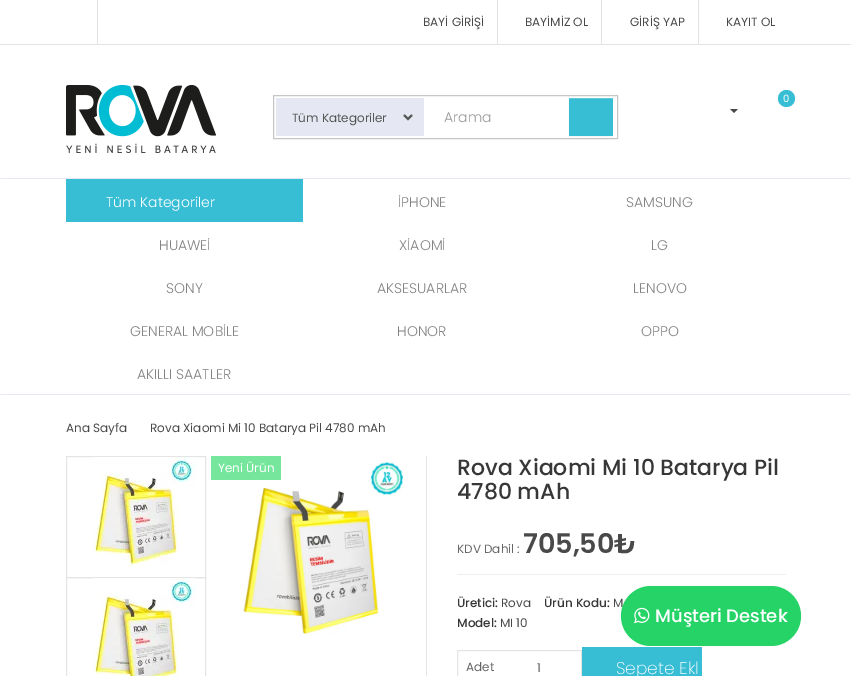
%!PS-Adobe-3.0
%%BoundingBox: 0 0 851 676
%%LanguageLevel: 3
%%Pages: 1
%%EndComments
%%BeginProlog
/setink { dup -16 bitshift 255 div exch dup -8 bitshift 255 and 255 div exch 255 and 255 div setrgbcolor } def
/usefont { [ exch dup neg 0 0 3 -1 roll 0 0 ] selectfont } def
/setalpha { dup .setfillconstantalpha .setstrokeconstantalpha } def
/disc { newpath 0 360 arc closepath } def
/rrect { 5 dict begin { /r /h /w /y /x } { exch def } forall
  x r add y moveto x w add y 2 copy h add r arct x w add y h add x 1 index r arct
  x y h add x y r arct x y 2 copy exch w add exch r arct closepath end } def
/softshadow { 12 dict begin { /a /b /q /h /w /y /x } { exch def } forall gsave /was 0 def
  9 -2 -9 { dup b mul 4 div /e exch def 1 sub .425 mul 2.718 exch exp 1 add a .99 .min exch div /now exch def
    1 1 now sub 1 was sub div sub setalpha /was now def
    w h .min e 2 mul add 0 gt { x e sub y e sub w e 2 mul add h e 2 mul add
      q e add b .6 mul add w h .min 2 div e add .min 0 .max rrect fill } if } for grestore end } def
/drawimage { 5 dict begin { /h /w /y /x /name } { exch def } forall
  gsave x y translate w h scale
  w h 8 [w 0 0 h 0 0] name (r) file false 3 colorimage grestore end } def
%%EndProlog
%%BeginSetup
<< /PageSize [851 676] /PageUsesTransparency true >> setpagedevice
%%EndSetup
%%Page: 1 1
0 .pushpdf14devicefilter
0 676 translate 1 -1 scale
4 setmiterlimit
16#FFFFFF setink
0 0 851 676 rectfill
16#E2E2E2 setink
0 44 851 1 rectfill
97 0 1 44 rectfill
/Poppins-Regular 12 usefont
16#494949 setink
423 26 moveto (BAYİ GİRİŞİ) show
16#E2E2E2 setink
497 0 1 44 rectfill
16#494949 setink
525 26 moveto (BAYİMİZ OL) show
16#E2E2E2 setink
601 0 1 44 rectfill
16#494949 setink
630 26 moveto (GİRİŞ YAP) show
16#E2E2E2 setink
698 0 1 44 rectfill
16#494949 setink
726 26 moveto (KAYIT OL) show
(img1.raw) 66 85 150 68 drawimage
16#37BDD4 setink
786.5 98.5 8.5 disc fill
/Poppins-Regular 10 usefont
16#FFFFFF setink
783 102 moveto (0) show
16#494949 setink
730 109 moveto 738 109 lineto 734 113 lineto closepath fill
16#C7C6C6 setink
273.5 95.5 344 43 rectstroke
16#E5E7F2 setink
276 98 148 38 rectfill
16#555555 setink
2 setlinewidth
404 115 moveto 408 119 lineto 412 115 lineto stroke
/Poppins-Regular 12 usefont
292 122 moveto (Tüm Kategoriler) show
/Poppins-Light 14 usefont
16#999999 setink
444 122 moveto (Arama) show
16#000000 setink
569 99 44 38 0 1 0.05 softshadow
16#37BDD4 setink
569 99 44 37 rectfill
16#5FCADD setink
569 98 44 1 rectfill
16#E5E7F2 setink
0 178 moveto 851 178 lineto 850 179 lineto 1 179 lineto closepath fill
851 395 moveto 0 395 lineto 1 394 lineto 850 394 lineto closepath fill
16#37BDD4 setink
66 179 237 43 rectfill
16#FFFFFF setink
106 207 moveto (Tüm Kategoriler) show
16#828282 setink
[
    [(İPHONE) 398 207]
    [(SAMSUNG) 626 207]
    [(HUAWEİ) 159 250]
    [(XİAOMİ) 399 250]
    [(LG) 651 250]
    [(SONY) 166 293]
    [(AKSESUARLAR) 377 293]
    [(LENOVO) 633 293]
    [(GENERAL MOBİLE) 130 336]
    [(HONOR) 397 336]
    [(OPPO) 641 336]
    [(AKILLI SAATLER) 137 379]
] { aload pop moveto show } forall
/Poppins-Regular 12 usefont
16#494949 setink
66 432 moveto (Ana Sayfa) show
150 432 moveto (Rova Xiaomi Mi 10 Batarya Pil 4780 mAh) show
16#E5E5E5 setink
1 setlinewidth
66.5 456.5 139 121 rectstroke
(img2.raw) 92 457 104 109 drawimage
66.5 577.5 139 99 rectstroke
(img3.raw) 92 578 104 98 drawimage
(img4.raw) 243 462 161 173 drawimage
16#76E69C setink
211 456 70 24 rectfill
16#FFFFFF setink
218 472 moveto (Yeni Ürün) show
16#E5E5E5 setink
426 456 1 220 rectfill
/Poppins-Medium 22 usefont
16#373737 setink
457 475 moveto (Rova Xiaomi Mi 10 Batarya Pil) show
457 499 moveto (4780 mAh) show
/Poppins-Regular 12 usefont
16#666666 setink
457 553 moveto (KDV Dahil :) show
/Poppins-SemiBold 27 usefont
16#494949 setink
523 553 moveto (705,50₺) show
16#EEEEEE setink
457 574 329 1 rectfill
/Poppins-Medium 12 usefont
16#373737 setink
457 607 moveto (Üretici:) show
/Poppins-Regular 12 usefont
16#494949 setink
501 607 moveto (Rova) show
/Poppins-Medium 12 usefont
16#373737 setink
544 607 moveto (Ürün Kodu:) show
/Poppins-Regular 12 usefont
16#494949 setink
613 607 moveto (M) show
/Poppins-Medium 12 usefont
16#373737 setink
457 627 moveto (Model:) show
/Poppins-Regular 12 usefont
16#494949 setink
500 627 moveto (MI 10) show
16#E5E5E5 setink
457.5 650.5 124 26 rectstroke
16#666666 setink
466 671 moveto (Adet) show
537 672 moveto (1) show
16#37BDD4 setink
582 647 120 29 rectfill
/Poppins-ExtraLight 17 usefont
16#FFFFFF setink
616 674 moveto (Sepete Ekl) show
16#25D366 setink
621 586 180 60 30 rrect fill
(img5.raw) 634 607 16 17 drawimage
/Poppins-Medium 18 usefont
16#FFFFFF setink
655 622 moveto (Müşteri Destek) show
.poppdf14devicefilter showpage
%%EOF
